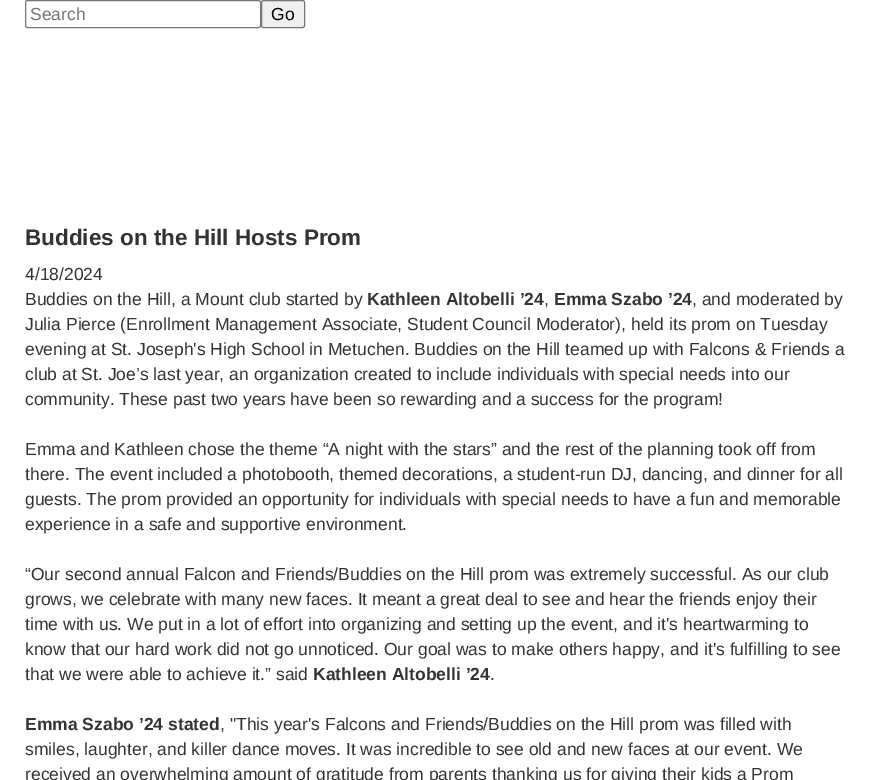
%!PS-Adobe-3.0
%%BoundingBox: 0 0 871 780
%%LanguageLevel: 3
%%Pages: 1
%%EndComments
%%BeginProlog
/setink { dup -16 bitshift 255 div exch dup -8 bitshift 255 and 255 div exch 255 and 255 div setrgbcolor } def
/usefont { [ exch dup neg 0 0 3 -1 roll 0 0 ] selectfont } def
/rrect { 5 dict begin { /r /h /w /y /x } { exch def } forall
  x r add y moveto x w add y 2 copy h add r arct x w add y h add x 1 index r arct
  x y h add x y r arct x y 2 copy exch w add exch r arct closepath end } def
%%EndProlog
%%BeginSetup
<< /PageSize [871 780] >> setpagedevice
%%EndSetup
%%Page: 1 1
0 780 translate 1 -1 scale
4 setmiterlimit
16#FFFFFF setink
0 0 871 780 rectfill
16#767676 setink
25.5 0.5 235 27 2 rrect stroke
/LiberationSans-Regular 17.5 usefont
16#757575 setink
30 20 moveto (Search) show
16#EFEFEF setink
261.5 0.5 43 27 2 rrect gsave fill grestore
16#767676 setink
stroke
16#000000 setink
271 20 moveto (Go) show
/LiberationSans-Bold 22.5 usefont
16#333333 setink
25 245 moveto (Buddies on the Hill Hosts Prom) show
/LiberationSans-Regular 17.5 usefont
25 280 moveto (4/18/2024) show
25 305 moveto (Buddies on the Hill, a Mount club started by) show
/LiberationSans-Bold 17.5 usefont
367 305 moveto (Kathleen Altobelli ’24) show
/LiberationSans-Regular 17.5 usefont
544 305 moveto (,) show
/LiberationSans-Bold 17.5 usefont
554 305 moveto (Emma Szabo ’24) show
/LiberationSans-Regular 17.5 usefont
[
    [(, and moderated by) 692 305]
    [(Julia Pierce \(Enrollment Management Associate, Student Council Moderator\), held its prom on Tuesday) 25 330]
    [(evening at St. Joseph's High School in Metuchen. Buddies on the Hill teamed up with Falcons & Friends a) 25 355]
    [(club at St. Joe’s last year, an organization created to include individuals with special needs into our) 25 380]
    [(community. These past two years have been so rewarding and a success for the program!) 25 405]
    [(Emma and Kathleen chose the theme “A night with the stars” and the rest of the planning took off from) 25 455]
    [(there. The event included a photobooth, themed decorations, a student-run DJ, dancing, and dinner for all) 25 480]
    [(guests. The prom provided an opportunity for individuals with special needs to have a fun and memorable) 25 505]
    [(experience in a safe and supportive environment.) 25 530]
    [(“Our second annual Falcon and Friends/Buddies on the Hill prom was extremely successful. As our club) 25 580]
    [(grows, we celebrate with many new faces. It meant a great deal to see and hear the friends enjoy their) 25 605]
    [(time with us. We put in a lot of effort into organizing and setting up the event, and it's heartwarming to) 25 630]
    [(know that our hard work did not go unnoticed. Our goal was to make others happy, and it's fulfilling to see) 25 655]
    [(that we were able to achieve it.” said) 25 680]
] { aload pop moveto show } forall
/LiberationSans-Bold 17.5 usefont
313 680 moveto (Kathleen Altobelli ’24) show
/LiberationSans-Regular 17.5 usefont
490 680 moveto (.) show
/LiberationSans-Bold 17.5 usefont
25 730 moveto (Emma Szabo ’24 stated) show
/LiberationSans-Regular 17.5 usefont
[
    [(, "This year's Falcons and Friends/Buddies on the Hill prom was filled with) 220 730]
    [(smiles, laughter, and killer dance moves. It was incredible to see old and new faces at our event. We) 25 755]
    [(received an overwhelming amount of gratitude from parents thanking us for giving their kids a Prom) 25 780]
] { aload pop moveto show } forall
showpage
%%EOF
